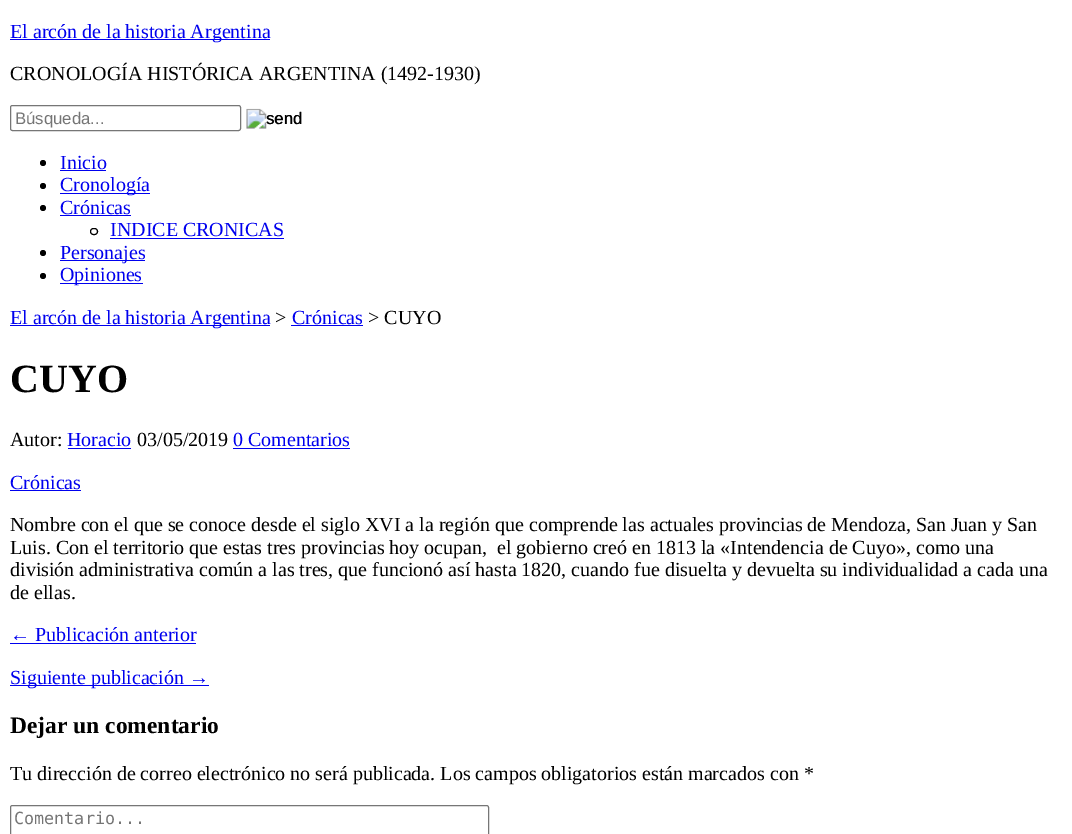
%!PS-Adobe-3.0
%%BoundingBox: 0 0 1072 834
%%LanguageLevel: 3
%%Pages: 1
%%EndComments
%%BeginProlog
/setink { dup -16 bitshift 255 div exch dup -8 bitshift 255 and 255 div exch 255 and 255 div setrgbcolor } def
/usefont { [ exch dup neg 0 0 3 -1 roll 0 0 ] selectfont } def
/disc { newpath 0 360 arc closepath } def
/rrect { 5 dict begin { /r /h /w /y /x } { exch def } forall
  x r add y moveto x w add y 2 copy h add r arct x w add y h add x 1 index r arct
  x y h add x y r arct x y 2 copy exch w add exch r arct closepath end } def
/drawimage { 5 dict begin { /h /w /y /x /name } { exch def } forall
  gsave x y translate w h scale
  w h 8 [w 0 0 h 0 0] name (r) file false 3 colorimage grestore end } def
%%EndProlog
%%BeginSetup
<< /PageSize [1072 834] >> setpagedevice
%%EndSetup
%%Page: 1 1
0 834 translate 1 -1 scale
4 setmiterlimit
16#FFFFFF setink
0 0 1072 834 rectfill
16#0000EE setink
10 39 260 1 rectfill
/LiberationSerif-Regular 20 usefont
10 38 moveto (El arcón de la historia Argentina) show
16#000000 setink
10 80 moveto (CRONOLOGÍA HISTÓRICA ARGENTINA \(1492-1930\)) show
16#767676 setink
10.5 105.5 230 25 2 rrect stroke
/LiberationSans-Regular 16.75 usefont
16#757575 setink
15 124 moveto (Búsqueda...) show
(img1.raw) 246 108 56 21 drawimage
16#000000 setink
266 124 moveto (send) show
43 163 3 disc fill
/LiberationSerif-Regular 20 usefont
16#0000EE setink
60 169 moveto (Inicio) show
60 170 46 1 rectfill
16#000000 setink
43 186 3 disc fill
16#0000EE setink
60 193 90 1 rectfill
60 191 moveto (Cronología) show
16#000000 setink
43 208 3 disc fill
16#0000EE setink
60 214 moveto (Crónicas) show
60 215 71 1 rectfill
16#000000 setink
90.5 228.5 7 6 3 rrect stroke
16#0000EE setink
110 236 moveto (INDICE CRONICAS) show
110 238 174 1 rectfill
16#000000 setink
43 253 3 disc fill
16#0000EE setink
60 260 85 1 rectfill
60 259 moveto (Personajes) show
16#000000 setink
43 276 3 disc fill
16#0000EE setink
60 283 83 1 rectfill
60 281 moveto (Opiniones) show
10 325 260 1 rectfill
10 324 moveto (El arcón de la historia Argentina) show
16#000000 setink
275 324 moveto (>) show
16#0000EE setink
292 324 moveto (Crónicas) show
291 325 72 1 rectfill
16#000000 setink
368 324 moveto (> CUYO) show
/LiberationSerif-Bold 40 usefont
10 392 moveto (CUYO) show
/LiberationSerif-Regular 20 usefont
10 446 moveto (Autor:) show
16#0000EE setink
67 446 moveto (Horacio) show
68 448 63 1 rectfill
16#000000 setink
137 446 moveto (03/05/2019) show
16#0000EE setink
233 446 moveto (0 Comentarios) show
233 448 117 1 rectfill
10 489 moveto (Crónicas) show
10 490 71 1 rectfill
16#000000 setink
[
    [(Nombre con el que se conoce desde el siglo XVI a la región que comprende las actuales provincias de Mendoza, San Juan y San) 10 531]
    [(Luis. Con el territorio que estas tres provincias hoy ocupan,  el gobierno creó en 1813 la «Intendencia de Cuyo», como una) 10 554]
    [(división administrativa común a las tres, que funcionó así hasta 1820, cuando fue disuelta y devuelta su individualidad a cada una) 10 576]
    [(de ellas.) 10 599]
] { aload pop moveto show } forall
16#0000EE setink
10 641 moveto (← Publicación anterior) show
10 643 186 1 rectfill
10 685 199 1 rectfill
10 684 moveto (Siguiente publicación →) show
/LiberationSerif-Bold 23.5 usefont
16#000000 setink
10 733 moveto (Dejar un comentario) show
/LiberationSerif-Regular 20 usefont
10 780 moveto (Tu dirección de correo electrónico no será publicada. Los campos obligatorios están marcados con *) show
16#767676 setink
10.5 805.5 478 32 2 rrect stroke
/DejaVuSansMono-Regular 16.75 usefont
16#757575 setink
14 824 moveto (Comentario...) show
showpage
%%EOF
